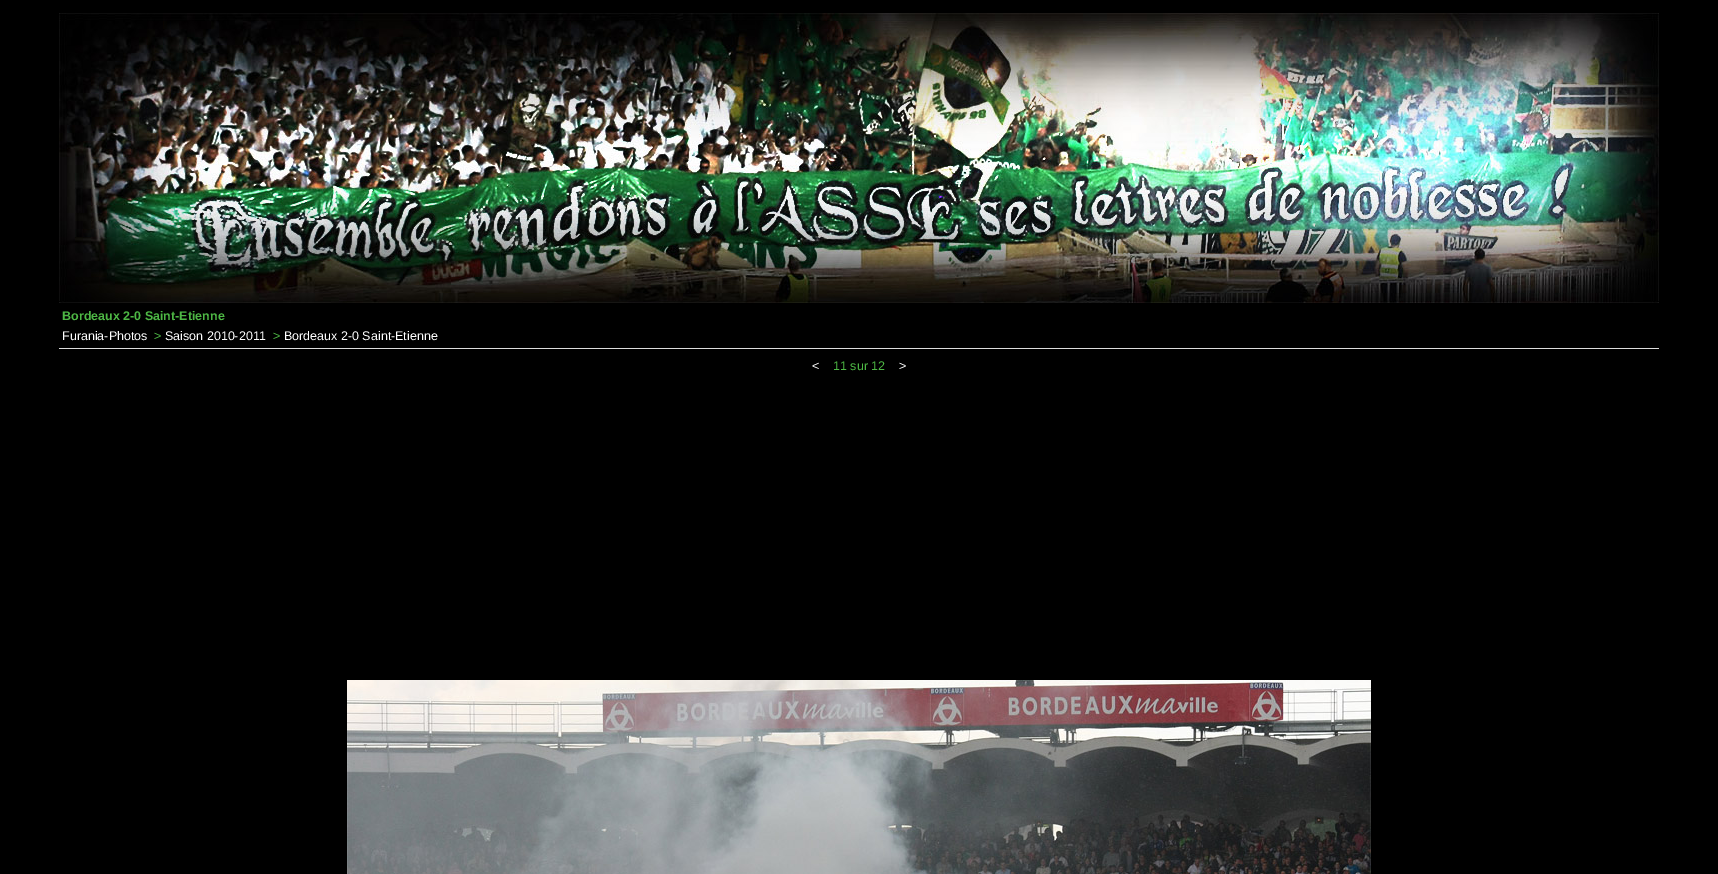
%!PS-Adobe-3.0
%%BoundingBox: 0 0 1718 874
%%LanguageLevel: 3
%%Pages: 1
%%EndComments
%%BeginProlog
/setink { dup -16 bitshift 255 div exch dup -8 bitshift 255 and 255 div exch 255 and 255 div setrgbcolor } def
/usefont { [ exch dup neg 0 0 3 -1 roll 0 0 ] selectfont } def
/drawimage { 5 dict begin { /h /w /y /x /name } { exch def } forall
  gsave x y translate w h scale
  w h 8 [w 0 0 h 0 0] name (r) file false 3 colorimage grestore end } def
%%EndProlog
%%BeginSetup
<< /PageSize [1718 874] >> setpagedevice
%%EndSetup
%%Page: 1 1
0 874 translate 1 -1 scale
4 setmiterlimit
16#000000 setink
0 0 1718 874 rectfill
(img1.raw) 59 13 1600 290 drawimage
/LiberationSans-Bold 12.5 usefont
16#4EB845 setink
62 320 moveto (Bordeaux 2-0 Saint-Etienne) show
16#DDDDDD setink
59 348 1600 1 rectfill
/LiberationSans-Regular 12.5 usefont
16#FFFFFF setink
62 340 moveto (Furania-Photos) show
16#4EB845 setink
154 340 moveto (>) show
16#FFFFFF setink
165 340 moveto (Saison 2010-2011) show
16#4EB845 setink
273 340 moveto (>) show
16#FFFFFF setink
284 340 moveto (Bordeaux 2-0 Saint-Etienne) show
812 370 moveto (<) show
16#4EB845 setink
833 370 moveto (11 sur 12) show
16#FFFFFF setink
899 370 moveto (>) show
(img2.raw) 347 680 1024 194 drawimage
showpage
%%EOF
